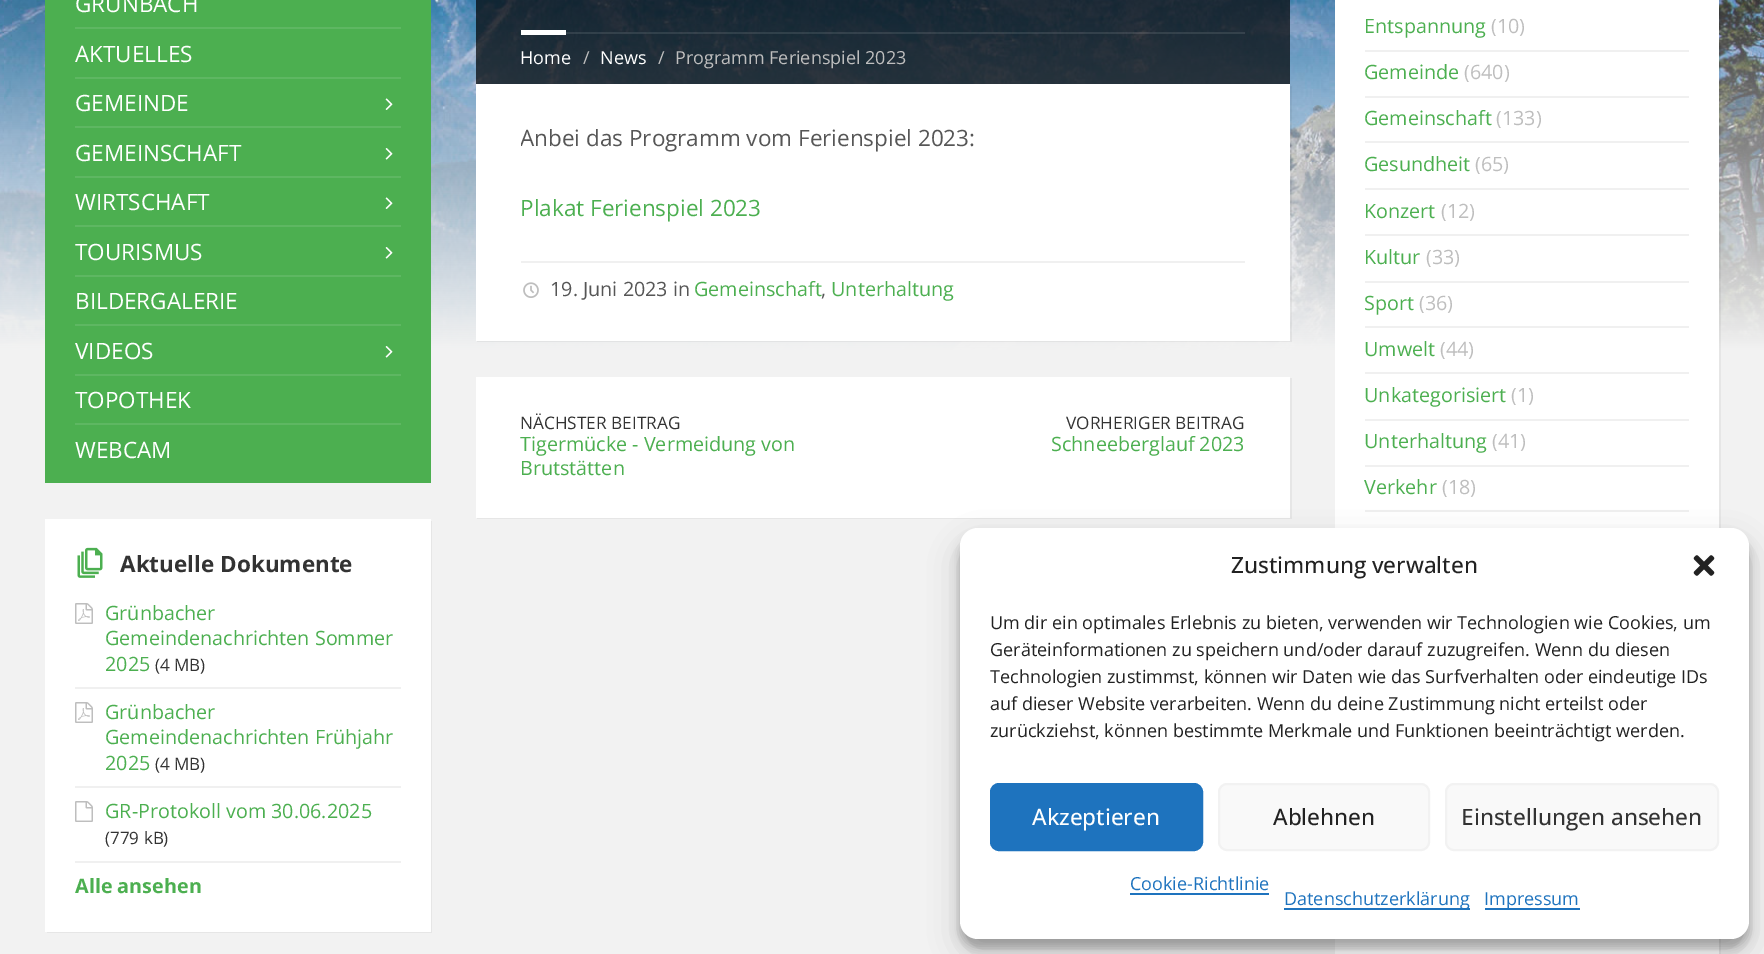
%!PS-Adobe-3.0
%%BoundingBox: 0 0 1764 954
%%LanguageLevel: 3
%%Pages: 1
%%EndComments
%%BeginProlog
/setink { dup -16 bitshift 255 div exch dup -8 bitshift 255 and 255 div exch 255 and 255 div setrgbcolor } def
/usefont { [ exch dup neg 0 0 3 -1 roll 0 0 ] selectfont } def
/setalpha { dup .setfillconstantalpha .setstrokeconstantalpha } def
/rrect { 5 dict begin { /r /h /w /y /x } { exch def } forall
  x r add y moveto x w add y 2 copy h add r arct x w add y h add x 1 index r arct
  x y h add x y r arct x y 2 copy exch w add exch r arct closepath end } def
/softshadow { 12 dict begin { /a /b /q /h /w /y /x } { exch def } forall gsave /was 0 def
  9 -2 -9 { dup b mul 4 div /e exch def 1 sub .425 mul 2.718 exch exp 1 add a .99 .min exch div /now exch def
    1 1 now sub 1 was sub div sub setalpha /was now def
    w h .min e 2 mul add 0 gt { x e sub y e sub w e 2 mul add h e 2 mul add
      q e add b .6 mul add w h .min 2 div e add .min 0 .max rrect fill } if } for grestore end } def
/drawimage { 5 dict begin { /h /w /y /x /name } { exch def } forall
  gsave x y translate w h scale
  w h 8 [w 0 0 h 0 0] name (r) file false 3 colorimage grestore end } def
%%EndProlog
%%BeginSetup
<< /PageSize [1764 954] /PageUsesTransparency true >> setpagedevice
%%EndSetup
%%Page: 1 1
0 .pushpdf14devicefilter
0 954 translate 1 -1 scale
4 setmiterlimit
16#F2F2F2 setink
0 0 1764 954 rectfill
(img1.raw) 0 0 1764 351 drawimage
16#4CAF50 setink
45 0 386 483 rectfill
/OpenSans-Regular 22.5 usefont
16#FFFFFF setink
75 12 moveto (GRÜNBACH) show
16#5EB762 setink
75 27 326 2 rectfill
16#FFFFFF setink
75 62 moveto (AKTUELLES) show
16#5EB762 setink
75 77 326 2 rectfill
16#FFFFFF setink
75 111 moveto (GEMEINDE) show
(img2.raw) 385 98 8 12 drawimage
16#5EB762 setink
75 126 326 2 rectfill
16#FFFFFF setink
75 161 moveto (GEMEINSCHAFT) show
(img3.raw) 385 148 8 12 drawimage
16#5EB762 setink
75 176 326 2 rectfill
16#FFFFFF setink
75 210 moveto (WIRTSCHAFT) show
(img2.raw) 385 197 8 12 drawimage
16#5EB762 setink
75 225 326 2 rectfill
16#FFFFFF setink
75 260 moveto (TOURISMUS) show
(img3.raw) 385 247 8 12 drawimage
16#5EB762 setink
75 275 326 2 rectfill
16#FFFFFF setink
75 309 moveto (BILDERGALERIE) show
16#5EB762 setink
75 324 326 2 rectfill
16#FFFFFF setink
75 359 moveto (VIDEOS) show
(img3.raw) 385 346 8 12 drawimage
16#5EB762 setink
75 374 326 2 rectfill
16#FFFFFF setink
75 408 moveto (TOPOTHEK) show
16#5EB762 setink
75 423 326 2 rectfill
16#FFFFFF setink
75 458 moveto (WEBCAM) show
16#E6E6E6 setink
47 932 moveto 47 933 lineto 432 933 lineto 432 521 lineto 430 521 lineto 430 932 lineto closepath fill
16#FFFFFF setink
45 519 386 413 rectfill
(img4.raw) 77 547 26 31 drawimage
/OpenSans-Bold 22.5 usefont
16#333333 setink
120 572 moveto (Aktuelle Dokumente) show
(img5.raw) 75 603 18 21 drawimage
/OpenSans-Regular 19.75 usefont
16#4CAF50 setink
[
    [(Grünbacher) 105 620]
    [(Gemeindenachrichten Sommer) 105 645]
    [(2025) 105 671]
] { aload pop moveto show } forall
/OpenSans-Regular 17 usefont
16#333333 setink
155 671 moveto (\(4 MB\)) show
16#F0F0F0 setink
75 687 326 2 rectfill
(img5.raw) 75 702 18 21 drawimage
/OpenSans-Regular 19.75 usefont
16#4CAF50 setink
[
    [(Grünbacher) 105 719]
    [(Gemeindenachrichten Frühjahr) 105 744]
    [(2025) 105 770]
] { aload pop moveto show } forall
/OpenSans-Regular 17 usefont
16#333333 setink
155 770 moveto (\(4 MB\)) show
16#F0F0F0 setink
75 786 326 2 rectfill
(img6.raw) 75 801 18 21 drawimage
/OpenSans-Regular 19.75 usefont
16#4CAF50 setink
105 818 moveto (GR-Protokoll vom 30.06.2025) show
/OpenSans-Regular 17 usefont
16#333333 setink
105 844 moveto (\(779 kB\)) show
16#F0F0F0 setink
75 861 326 2 rectfill
/OpenSans-Bold 19.75 usefont
16#4CAF50 setink
75 893 moveto (Alle ansehen) show
0.7 setalpha
[
    [476 0 814 84 16#000000]
] { aload pop setink rectfill } forall
0.1 setalpha
[
    [566 32 679 2 16#FFFFFF]
] { aload pop setink rectfill } forall
1 setalpha
[
    [521 30 45 5 16#FFFFFF]
] { aload pop setink rectfill } forall
/OpenSans-Regular 18 usefont
520 64 moveto (Home) show
16#BEBEBE setink
583 64 moveto (/) show
16#FFFFFF setink
600 64 moveto (News) show
16#BEBEBE setink
658 64 moveto (/) show
675 64 moveto (Programm Ferienspiel 2023) show
0.05 setalpha
16#000000 setink
477 340 moveto 477 342 lineto 1292 342 lineto 1292 86 lineto 1290 86 lineto 1290 340 lineto closepath fill
1 setalpha
16#FFFFFF setink
476 84 814 257 rectfill
gsave
521 120 724 140 rectclip
/OpenSans-Regular 22.5 usefont
16#565656 setink
520 146 moveto (Anbei das Programm vom Ferienspiel 2023:) show
grestore
/OpenSans-Regular 22.5 usefont
16#4CAF50 setink
520 216 moveto (Plakat Ferienspiel 2023) show
16#F0F0F0 setink
521 261 724 2 rectfill
(img7.raw) 523 282 16 16 drawimage
/OpenSans-Regular 19.75 usefont
16#565656 setink
550 296 moveto (19. Juni 2023 in) show
16#4CAF50 setink
694 296 moveto (Gemeinschaft) show
16#565656 setink
821 296 moveto (,) show
16#4CAF50 setink
831 296 moveto (Unterhaltung) show
16#E6E6E6 setink
477 518 moveto 477 519 lineto 1292 519 lineto 1292 378 lineto 1290 378 lineto 1290 518 lineto closepath fill
16#FFFFFF setink
476 377 814 141 rectfill
/OpenSans-Regular 17.25 usefont
16#333333 setink
520 429 moveto (NÄCHSTER BEITRAG) show
/OpenSans-Regular 19.75 usefont
16#4CAF50 setink
520 451 moveto (Tigermücke - Vermeidung von) show
520 475 moveto (Brutstätten) show
/OpenSans-Regular 17.25 usefont
16#333333 setink
1066 429 moveto (VORHERIGER BEITRAG) show
/OpenSans-Regular 19.75 usefont
16#4CAF50 setink
1051 451 moveto (Schneeberglauf 2023) show
0.05 setalpha
16#000000 setink
1337 576 moveto 1337 578 lineto 1721 578 lineto 1721 -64 lineto 1719 -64 lineto 1719 576 lineto closepath fill
1 setalpha
16#FFFFFF setink
1335 0 384 528 rectfill
16#4CAF50 setink
1364 33 moveto (Entspannung) show
16#BEBEBE setink
1491 33 moveto (\(10\)) show
16#F0F0F0 setink
1365 50 324 2 rectfill
16#4CAF50 setink
1364 79 moveto (Gemeinde) show
16#BEBEBE setink
1464 79 moveto (\(640\)) show
16#F0F0F0 setink
1365 96 324 2 rectfill
16#4CAF50 setink
1364 125 moveto (Gemeinschaft) show
16#BEBEBE setink
1496 125 moveto (\(133\)) show
16#F0F0F0 setink
1365 141 324 2 rectfill
16#4CAF50 setink
1364 171 moveto (Gesundheit) show
16#BEBEBE setink
1475 171 moveto (\(65\)) show
16#F0F0F0 setink
1365 188 324 2 rectfill
16#4CAF50 setink
1364 218 moveto (Konzert) show
16#BEBEBE setink
1441 218 moveto (\(12\)) show
16#F0F0F0 setink
1365 234 324 2 rectfill
16#4CAF50 setink
1364 264 moveto (Kultur) show
16#BEBEBE setink
1426 264 moveto (\(33\)) show
16#F0F0F0 setink
1365 281 324 2 rectfill
16#4CAF50 setink
1364 310 moveto (Sport) show
16#BEBEBE setink
1419 310 moveto (\(36\)) show
16#F0F0F0 setink
1365 326 324 2 rectfill
16#4CAF50 setink
1364 356 moveto (Umwelt) show
16#BEBEBE setink
1440 356 moveto (\(44\)) show
16#F0F0F0 setink
1365 372 324 2 rectfill
16#4CAF50 setink
1364 402 moveto (Unkategorisiert) show
16#BEBEBE setink
1511 402 moveto (\(1\)) show
16#F0F0F0 setink
1365 419 324 2 rectfill
16#4CAF50 setink
1364 448 moveto (Unterhaltung) show
16#BEBEBE setink
1492 448 moveto (\(41\)) show
16#F0F0F0 setink
1365 465 324 2 rectfill
16#4CAF50 setink
1364 494 moveto (Verkehr) show
16#BEBEBE setink
1442 494 moveto (\(18\)) show
16#F0F0F0 setink
1365 510 324 2 rectfill
16#E6E6E6 setink
1337 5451 moveto 1337 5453 lineto 1721 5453 lineto 1721 614 lineto 1719 614 lineto 1719 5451 lineto closepath fill
16#FFFFFF setink
1335 939 384 15 rectfill
16#000000 setink
960 537 789 411 18 4.5 0.23 softshadow
960 543 789 411 18 15 0.19 softshadow
16#FFFFFF setink
960 528 789 411 18 rrect fill
/OpenSans-Medium 22.5 usefont
16#222222 setink
1231 573 moveto (Zustimmung verwalten) show
(img8.raw) 1693 555 22 21 drawimage
/OpenSans-Regular 18 usefont
[
    [(Um dir ein optimales Erlebnis zu bieten, verwenden wir Technologien wie Cookies, um) 990 629]
    [(Geräteinformationen zu speichern und/oder darauf zuzugreifen. Wenn du diesen) 990 656]
    [(Technologien zustimmst, können wir Daten wie das Surfverhalten oder eindeutige IDs) 990 683]
    [(auf dieser Website verarbeiten. Wenn du deine Zustimmung nicht erteilst oder) 990 710]
    [(zurückziehst, können bestimmte Merkmale und Funktionen beeinträchtigt werden.) 990 737]
] { aload pop moveto show } forall
16#1E73BE setink
991 784 211 66 8 rrect gsave fill grestore
2 setlinewidth
stroke
/OpenSans-Medium 22.5 usefont
16#FFFFFF setink
1032 825 moveto (Akzeptieren) show
16#F9F9F9 setink
1219 784 210 66 8 rrect gsave fill grestore
16#F2F2F2 setink
stroke
16#222222 setink
1273 825 moveto (Ablehnen) show
16#F9F9F9 setink
1446 784 272 66 8 rrect gsave fill grestore
16#F2F2F2 setink
stroke
16#333333 setink
1461 825 moveto (Einstellungen ansehen) show
/OpenSans-Regular 18 usefont
16#1E73BE setink
1130 890 moveto (Cookie-Richtlinie) show
1130 893 139 2 rectfill
1284 908 186 2 rectfill
1284 905 moveto (Datenschutzerklärung) show
1485 908 95 2 rectfill
1484 905 moveto (Impressum) show
.poppdf14devicefilter showpage
%%EOF
